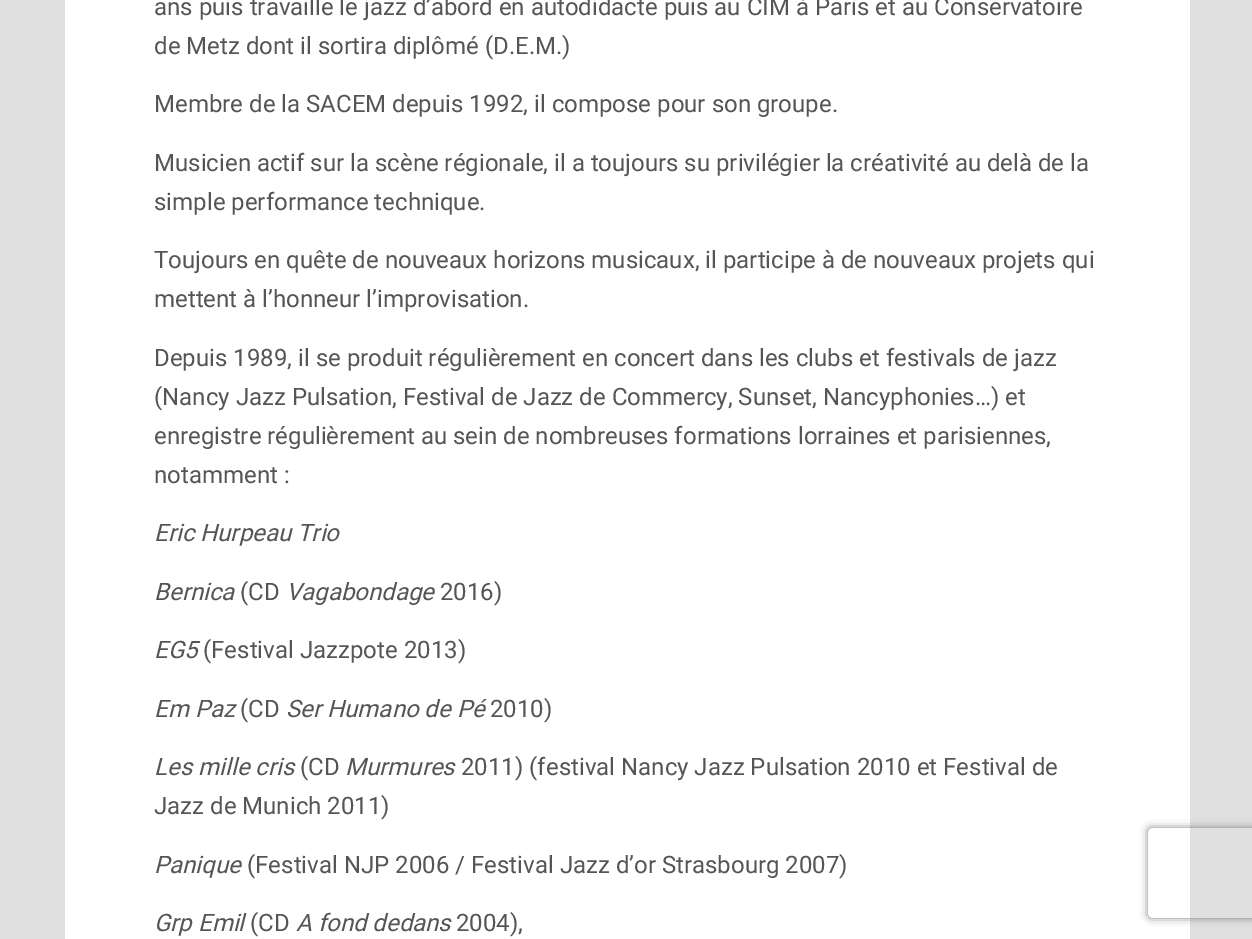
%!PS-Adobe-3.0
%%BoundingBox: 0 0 1252 939
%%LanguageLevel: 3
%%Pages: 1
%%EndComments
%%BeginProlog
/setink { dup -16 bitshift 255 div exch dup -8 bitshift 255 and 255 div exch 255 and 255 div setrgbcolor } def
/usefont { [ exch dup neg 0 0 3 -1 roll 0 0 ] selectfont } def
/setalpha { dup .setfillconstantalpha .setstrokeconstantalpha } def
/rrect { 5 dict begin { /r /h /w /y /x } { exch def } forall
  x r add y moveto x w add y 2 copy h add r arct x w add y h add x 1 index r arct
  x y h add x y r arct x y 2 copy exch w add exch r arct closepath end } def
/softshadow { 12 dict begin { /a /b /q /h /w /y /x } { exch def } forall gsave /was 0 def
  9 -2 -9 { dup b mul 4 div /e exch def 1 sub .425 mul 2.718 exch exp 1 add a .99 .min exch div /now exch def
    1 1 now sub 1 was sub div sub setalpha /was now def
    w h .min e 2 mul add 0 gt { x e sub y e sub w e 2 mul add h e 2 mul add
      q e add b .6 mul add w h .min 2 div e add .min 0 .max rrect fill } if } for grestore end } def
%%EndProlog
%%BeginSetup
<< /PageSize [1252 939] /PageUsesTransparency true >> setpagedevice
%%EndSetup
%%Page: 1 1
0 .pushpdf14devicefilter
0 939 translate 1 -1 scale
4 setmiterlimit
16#E0E0E0 setink
0 0 1252 939 rectfill
16#FFFFFF setink
65 0 1125 939 rectfill
/Roboto-Regular 24 usefont
16#555555 setink
[
    [(ans puis travaille le jazz d’abord en autodidacte puis au CIM à Paris et au Conservatoire) 154 15]
    [(de Metz dont il sortira diplômé \(D.E.M.\)) 154 54]
    [(Membre de la SACEM depuis 1992, il compose pour son groupe.) 154 112]
    [(Musicien actif sur la scène régionale, il a toujours su privilégier la créativité au delà de la) 154 171]
    [(simple performance technique.) 154 210]
    [(Toujours en quête de nouveaux horizons musicaux, il participe à de nouveaux projets qui) 154 268]
    [(mettent à l’honneur l’improvisation.) 154 307]
    [(Depuis 1989, il se produit régulièrement en concert dans les clubs et festivals de jazz) 154 366]
    [(\(Nancy Jazz Pulsation, Festival de Jazz de Commercy, Sunset, Nancyphonies…\) et) 154 405]
    [(enregistre régulièrement au sein de nombreuses formations lorraines et parisiennes,) 154 444]
    [(notamment :) 154 483]
] { aload pop moveto show } forall
/Roboto-Italic 24 usefont
154 541 moveto (Eric Hurpeau Trio) show
154 600 moveto (Bernica) show
/Roboto-Regular 24 usefont
240 600 moveto (\(CD) show
/Roboto-Italic 24 usefont
286 600 moveto (Vagabondage) show
/Roboto-Regular 24 usefont
440 600 moveto (2016\)) show
/Roboto-Italic 24 usefont
154 658 moveto (EG5) show
/Roboto-Regular 24 usefont
203 658 moveto (\(Festival Jazzpote 2013\)) show
/Roboto-Italic 24 usefont
154 717 moveto (Em Paz) show
/Roboto-Regular 24 usefont
240 717 moveto (\(CD) show
/Roboto-Italic 24 usefont
286 717 moveto (Ser Humano de Pé) show
/Roboto-Regular 24 usefont
490 717 moveto (2010\)) show
/Roboto-Italic 24 usefont
154 775 moveto (Les mille cris) show
/Roboto-Regular 24 usefont
300 775 moveto (\(CD) show
/Roboto-Italic 24 usefont
345 775 moveto (Murmures) show
/Roboto-Regular 24 usefont
461 775 moveto (2011\) \(festival Nancy Jazz Pulsation 2010 et Festival de) show
154 814 moveto (Jazz de Munich 2011\)) show
/Roboto-Italic 24 usefont
154 873 moveto (Panique) show
/Roboto-Regular 24 usefont
247 873 moveto (\(Festival NJP 2006 / Festival Jazz d’or Strasbourg 2007\)) show
/Roboto-Italic 24 usefont
154 931 moveto (Grp Emil) show
/Roboto-Regular 24 usefont
250 931 moveto (\(CD) show
/Roboto-Italic 24 usefont
296 931 moveto (A fond dedans) show
/Roboto-Regular 24 usefont
456 931 moveto (2004\),) show
gsave
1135 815 moveto 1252 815 lineto 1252 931 lineto 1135 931 lineto closepath 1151 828 moveto 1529 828 lineto 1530.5 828 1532 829.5 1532 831 curveto 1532 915 lineto 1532 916.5 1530.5 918 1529 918 curveto 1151 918 lineto 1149.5 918 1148 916.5 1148 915 curveto 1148 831 lineto 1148 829.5 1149.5 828 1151 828 curveto closepath eoclip newpath
16#808080 setink
1148 828 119 90 3 4 1 softshadow
grestore
.poppdf14devicefilter showpage
%%EOF
